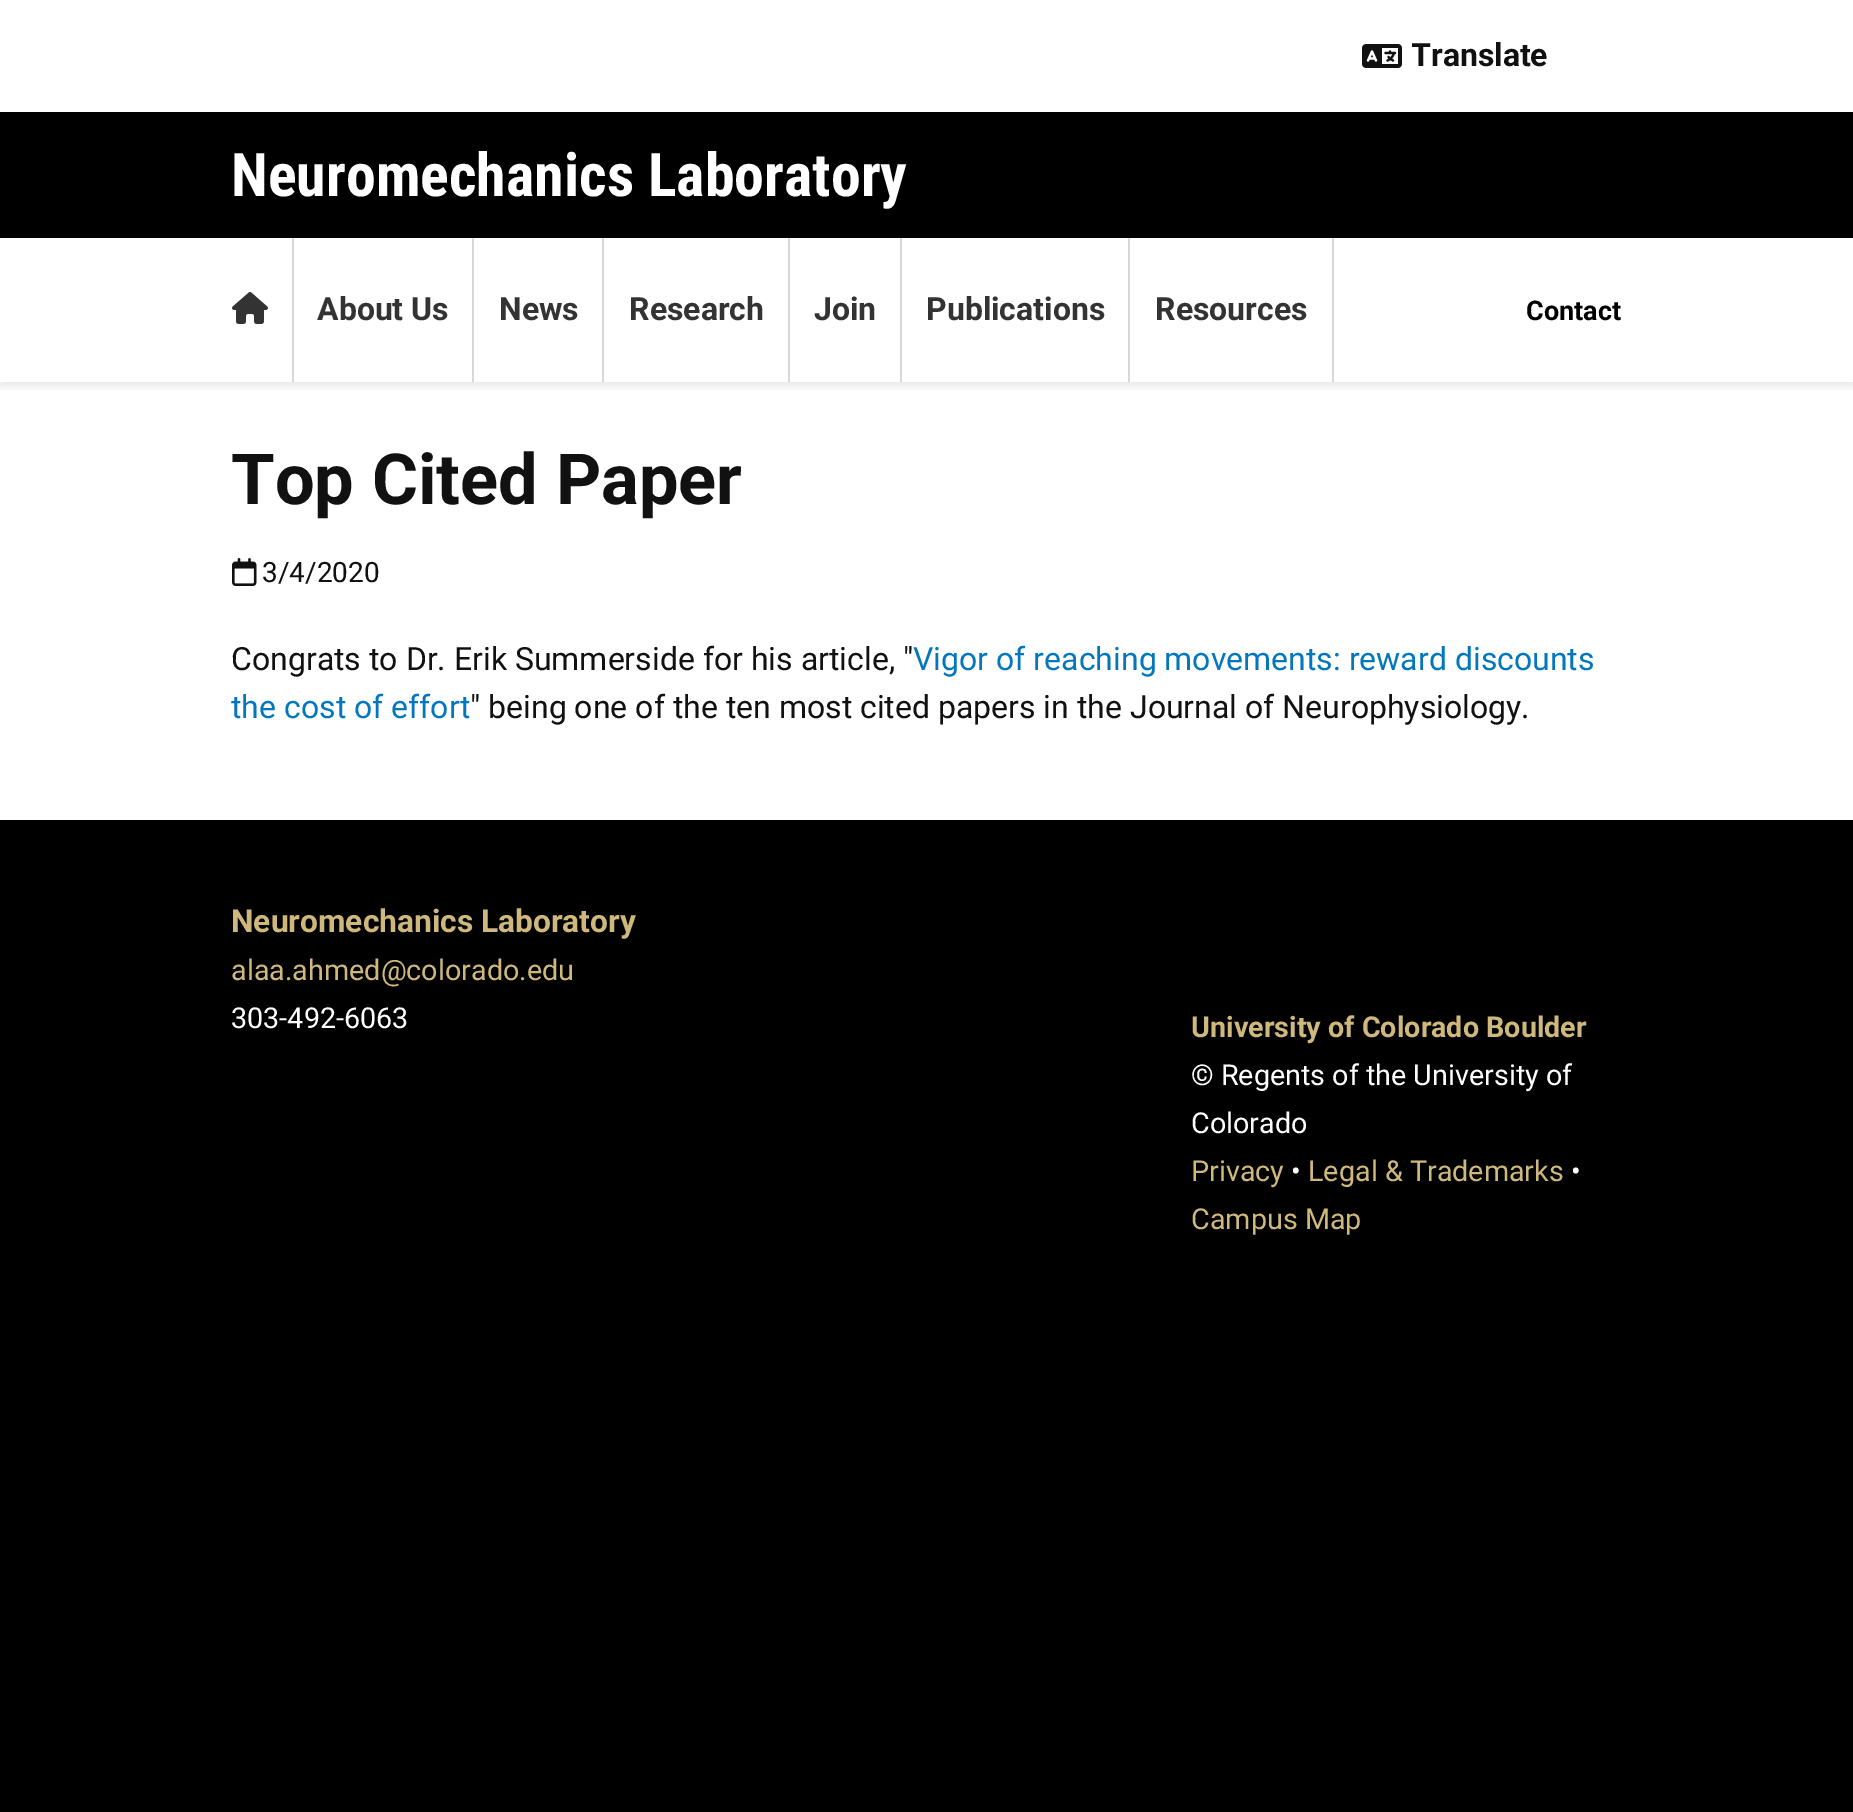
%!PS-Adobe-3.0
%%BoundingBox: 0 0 1853 1812
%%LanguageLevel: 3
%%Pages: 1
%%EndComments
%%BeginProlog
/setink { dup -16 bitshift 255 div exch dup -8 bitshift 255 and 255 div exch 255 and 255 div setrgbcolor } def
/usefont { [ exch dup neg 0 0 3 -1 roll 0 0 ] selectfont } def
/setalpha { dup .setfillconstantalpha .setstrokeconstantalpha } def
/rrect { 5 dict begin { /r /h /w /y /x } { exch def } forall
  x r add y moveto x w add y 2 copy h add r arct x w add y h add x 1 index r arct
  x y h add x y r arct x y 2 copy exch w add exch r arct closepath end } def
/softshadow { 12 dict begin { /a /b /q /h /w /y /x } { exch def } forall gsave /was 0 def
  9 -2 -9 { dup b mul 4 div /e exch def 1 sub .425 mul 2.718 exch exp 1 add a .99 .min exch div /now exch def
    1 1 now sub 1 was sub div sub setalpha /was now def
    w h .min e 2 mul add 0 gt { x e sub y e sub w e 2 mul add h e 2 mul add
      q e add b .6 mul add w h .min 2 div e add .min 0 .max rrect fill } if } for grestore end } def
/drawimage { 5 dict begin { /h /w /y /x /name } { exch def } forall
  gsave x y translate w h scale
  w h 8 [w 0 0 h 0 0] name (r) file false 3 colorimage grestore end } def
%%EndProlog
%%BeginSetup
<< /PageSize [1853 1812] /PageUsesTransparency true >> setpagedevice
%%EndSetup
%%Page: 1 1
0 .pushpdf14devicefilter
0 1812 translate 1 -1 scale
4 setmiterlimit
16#FFFFFF setink
0 0 1853 1812 rectfill
(img1.raw) 1362 44 40 24 drawimage
gsave
1412 32 140 48 rectclip
/Roboto-Bold 32 usefont
16#111111 setink
1411 66 moveto (Translate) show
grestore
gsave
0 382 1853 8 rectclip
16#000000 setink
0 242 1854 144 0 5 0.1 softshadow
grestore
16#000000 setink
0 112 1853 126 rectfill
/RobotoCondensed-Bold 60 usefont
16#FFFFFF setink
231 196 moveto (Neuromechanics Laboratory) show
16#D7D7D7 setink
292 238 2 144 rectfill
(img2.raw) 232 292 36 32 drawimage
472 238 2 144 rectfill
/Roboto-Bold 32 usefont
16#333333 setink
317 320 moveto (About Us) show
16#D7D7D7 setink
602 238 2 144 rectfill
16#333333 setink
499 320 moveto (News) show
16#D7D7D7 setink
788 238 2 144 rectfill
16#333333 setink
629 320 moveto (Research) show
16#D7D7D7 setink
900 238 2 144 rectfill
16#333333 setink
814 320 moveto (Join) show
16#D7D7D7 setink
1128 238 2 144 rectfill
16#333333 setink
926 320 moveto (Publications) show
16#D7D7D7 setink
1332 238 2 144 rectfill
16#333333 setink
1155 320 moveto (Resources) show
/Roboto-Bold 27 usefont
16#000000 setink
1526 320 moveto (Contact) show
/Roboto-Bold 70.5 usefont
16#111111 setink
231 504 moveto (Top Cited Paper) show
(img3.raw) 232 558 25 28 drawimage
/Roboto-Regular 28 usefont
262 582 moveto (3/4/2020) show
/Roboto-Regular 32 usefont
231 670 moveto (Congrats to Dr. Erik Summerside for his article, ") show
16#0277BD setink
913 670 moveto (Vigor of reaching movements: reward discounts) show
231 718 moveto (the cost of effort) show
16#111111 setink
470 718 moveto (" being one of the ten most cited papers in the Journal of Neurophysiology.) show
16#000000 setink
0 820 1853 992 rectfill
/Roboto-Bold 31.75 usefont
16#CFB87C setink
231 932 moveto (Neuromechanics Laboratory) show
/Roboto-Regular 28.75 usefont
231 980 moveto (alaa.ahmed@colorado.edu) show
16#FFFFFF setink
231 1028 moveto (303-492-6063) show
/Roboto-Bold 28.75 usefont
16#CFB87C setink
1191 1037 moveto (University of Colorado Boulder) show
/Roboto-Regular 28.75 usefont
16#FFFFFF setink
1191 1085 moveto (© Regents of the University of) show
1191 1133 moveto (Colorado) show
16#CFB87C setink
1191 1181 moveto (Privacy) show
16#FFFFFF setink
1291 1181 moveto (•) show
16#CFB87C setink
1308 1181 moveto (Legal & Trademarks) show
16#FFFFFF setink
1571 1181 moveto (•) show
16#CFB87C setink
1191 1229 moveto (Campus Map) show
.poppdf14devicefilter showpage
%%EOF
